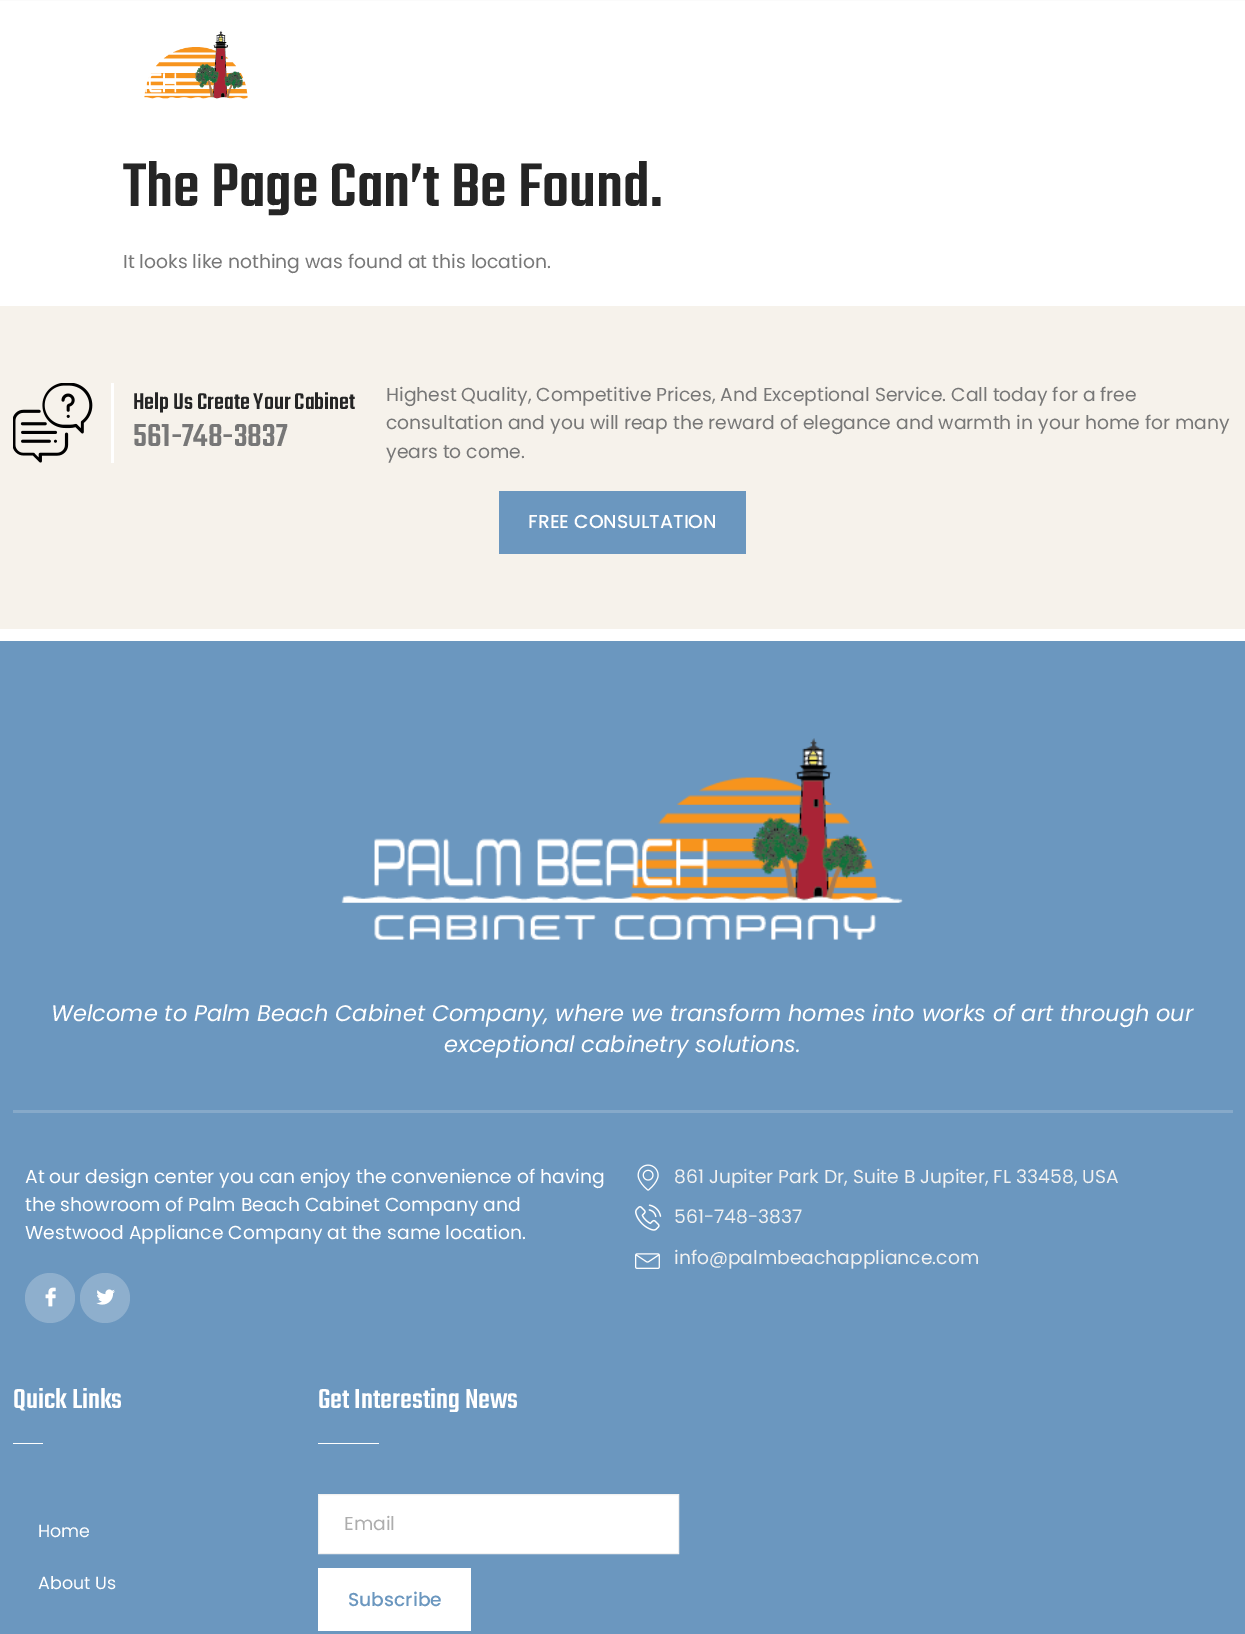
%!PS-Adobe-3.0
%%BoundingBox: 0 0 1245 1634
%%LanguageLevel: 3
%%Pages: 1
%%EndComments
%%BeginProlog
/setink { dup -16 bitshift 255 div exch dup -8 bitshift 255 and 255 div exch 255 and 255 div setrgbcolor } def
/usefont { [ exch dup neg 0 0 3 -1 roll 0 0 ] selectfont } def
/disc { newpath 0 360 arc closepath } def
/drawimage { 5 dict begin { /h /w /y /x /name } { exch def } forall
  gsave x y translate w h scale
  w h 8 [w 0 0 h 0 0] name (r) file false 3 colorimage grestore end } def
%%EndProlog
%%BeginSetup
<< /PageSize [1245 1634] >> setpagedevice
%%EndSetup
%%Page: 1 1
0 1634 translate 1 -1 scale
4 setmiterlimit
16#FFFFFF setink
0 0 1245 1634 rectfill
16#FBFBFB setink
0 0 1245 1 rectfill
(img1.raw) 144 30 104 69 drawimage
/Teko-Medium 67.5 usefont
16#252525 setink
123 206 moveto (The Page Can’t Be Found.) show
/Poppins-Regular 18.75 usefont
16#777777 setink
123 268 moveto (It looks like nothing was found at this location.) show
16#F6F2EB setink
0 306 1245 323 rectfill
16#FFFFFF setink
111 383 3 80 rectfill
(img2.raw) 13 383 80 80 drawimage
/Teko-Medium 25 usefont
16#252525 setink
133 409 moveto (Help Us Create Your Cabinet) show
/Teko-Medium 35 usefont
16#777777 setink
133 446 moveto (561-748-3837) show
/Poppins-Regular 18.75 usefont
[
    [(Highest Quality, Competitive Prices, And Exceptional Service. Call today for a free) 386 401]
    [(consultation and you will reap the reward of elegance and warmth in your home for many) 386 429]
    [(years to come.) 386 458]
] { aload pop moveto show } forall
16#6B97BF setink
499 491 247 63 rectfill
/Poppins-Medium 18.75 usefont
16#FFFFFF setink
528 528 moveto (FREE CONSULTATION) show
16#6B97BF setink
0 641 1245 993 rectfill
(img3.raw) 341 738 562 202 drawimage
/Poppins-Italic 22.5 usefont
16#FFFFFF setink
51 1021 moveto (Welcome to Palm Beach Cabinet Company, where we transform homes into works of art through our) show
444 1052 moveto (exceptional cabinetry solutions.) show
16#86A9C9 setink
13 1110 1220 3 rectfill
/Poppins-Regular 18.75 usefont
16#FFFFFF setink
[
    [(At our design center you can enjoy the convenience of having) 25 1183]
    [(the showroom of Palm Beach Cabinet Company and) 25 1211]
    [(Westwood Appliance Company at the same location.) 25 1239]
] { aload pop moveto show } forall
16#8EAFCD setink
50 1298 25 disc fill
(img4.raw) 45 1287 11 20 drawimage
105 1298 25 disc fill
(img5.raw) 96 1289 19 16 drawimage
(img6.raw) 637 1164 22 27 drawimage
16#F1F1F1 setink
674 1183 moveto (861 Jupiter Park Dr, Suite B Jupiter, FL 33458, USA) show
(img7.raw) 635 1204 27 27 drawimage
674 1223 moveto (561-748-3837) show
(img8.raw) 635 1253 25 16 drawimage
674 1264 moveto (info@palmbeachappliance.com) show
/Teko-Medium 30 usefont
16#FFFFFF setink
13 1408 moveto (Quick Links) show
13 1443 30 1 rectfill
/Poppins-Regular 17.5 usefont
38 1537 moveto (Home) show
38 1589 moveto (About Us) show
/Teko-Medium 30 usefont
318 1408 moveto (Get Interesting News) show
318 1443 61 1 rectfill
318.5 1494.5 moveto 678.5 1494.5 lineto 678.5 1553.5 lineto 318.5 1553.5 lineto closepath gsave fill grestore
16#F1F1F1 setink
stroke
/Poppins-Regular 18.75 usefont
16#ADADAD setink
344 1530 moveto (Email) show
16#FFFFFF setink
318 1568 153 63 rectfill
/Poppins-Medium 18.75 usefont
16#6B97BF setink
348 1606 moveto (Subscribe) show
showpage
%%EOF
